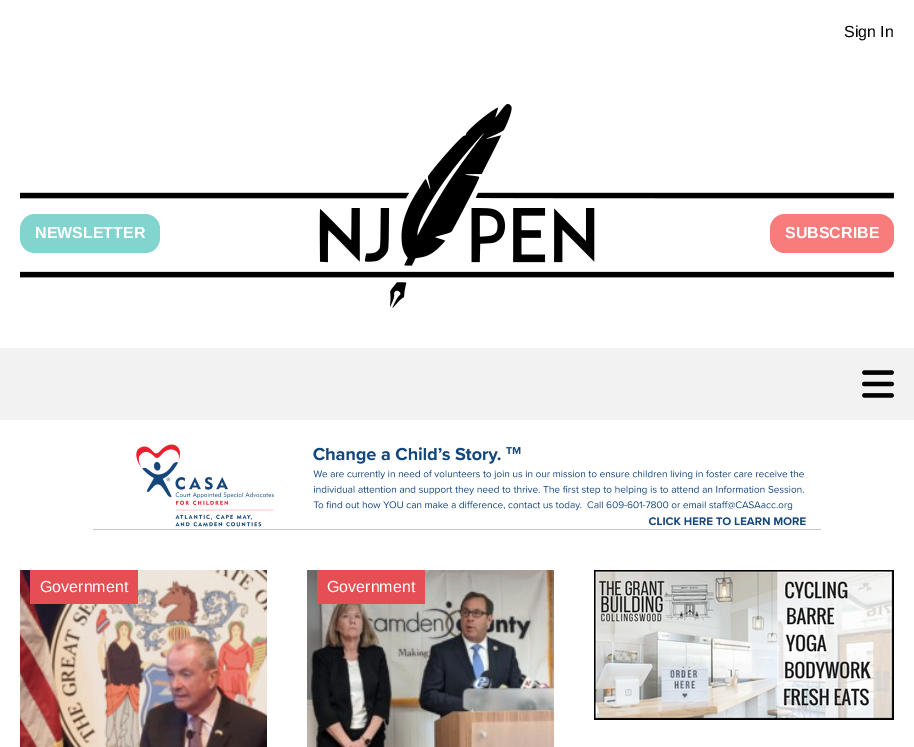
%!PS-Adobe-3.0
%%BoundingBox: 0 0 914 747
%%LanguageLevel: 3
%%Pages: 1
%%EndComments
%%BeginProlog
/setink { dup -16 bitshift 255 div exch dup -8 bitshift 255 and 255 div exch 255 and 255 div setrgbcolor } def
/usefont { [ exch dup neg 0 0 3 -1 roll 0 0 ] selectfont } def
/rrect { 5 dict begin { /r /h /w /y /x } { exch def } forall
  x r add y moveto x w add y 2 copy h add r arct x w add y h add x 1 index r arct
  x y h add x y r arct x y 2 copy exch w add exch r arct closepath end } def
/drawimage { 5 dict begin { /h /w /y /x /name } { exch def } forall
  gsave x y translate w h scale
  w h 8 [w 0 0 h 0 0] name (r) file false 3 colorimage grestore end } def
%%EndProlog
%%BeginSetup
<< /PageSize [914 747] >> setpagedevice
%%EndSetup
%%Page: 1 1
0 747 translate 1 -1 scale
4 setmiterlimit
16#FFFFFF setink
0 0 914 747 rectfill
/LiberationSans-Regular 16 usefont
16#000000 setink
844 37 moveto (Sign In) show
(img1.raw) 20 104 874 204 drawimage
16#82D5CE setink
20 214 140 39 15 rrect fill
/LiberationSans-Bold 16 usefont
16#FFFFFF setink
35 238 moveto (NEWSLETTER) show
16#F87C7C setink
770 214 124 39 15 rrect fill
16#FFFFFF setink
785 238 moveto (SUBSCRIBE) show
16#F2F2F2 setink
0 348 914 72 rectfill
(img2.raw) 862 370 32 28 drawimage
(img3.raw) 93 440 728 90 drawimage
(img4.raw) 20 570 247 177 drawimage
16#E54E53 setink
30 570 108 34 rectfill
/LiberationSans-Regular 16 usefont
16#FFFFFF setink
40 592 moveto (Government) show
(img5.raw) 307 570 247 177 drawimage
16#E54E53 setink
317 570 108 34 rectfill
16#FFFFFF setink
327 592 moveto (Government) show
(img6.raw) 594 570 300 150 drawimage
showpage
%%EOF
